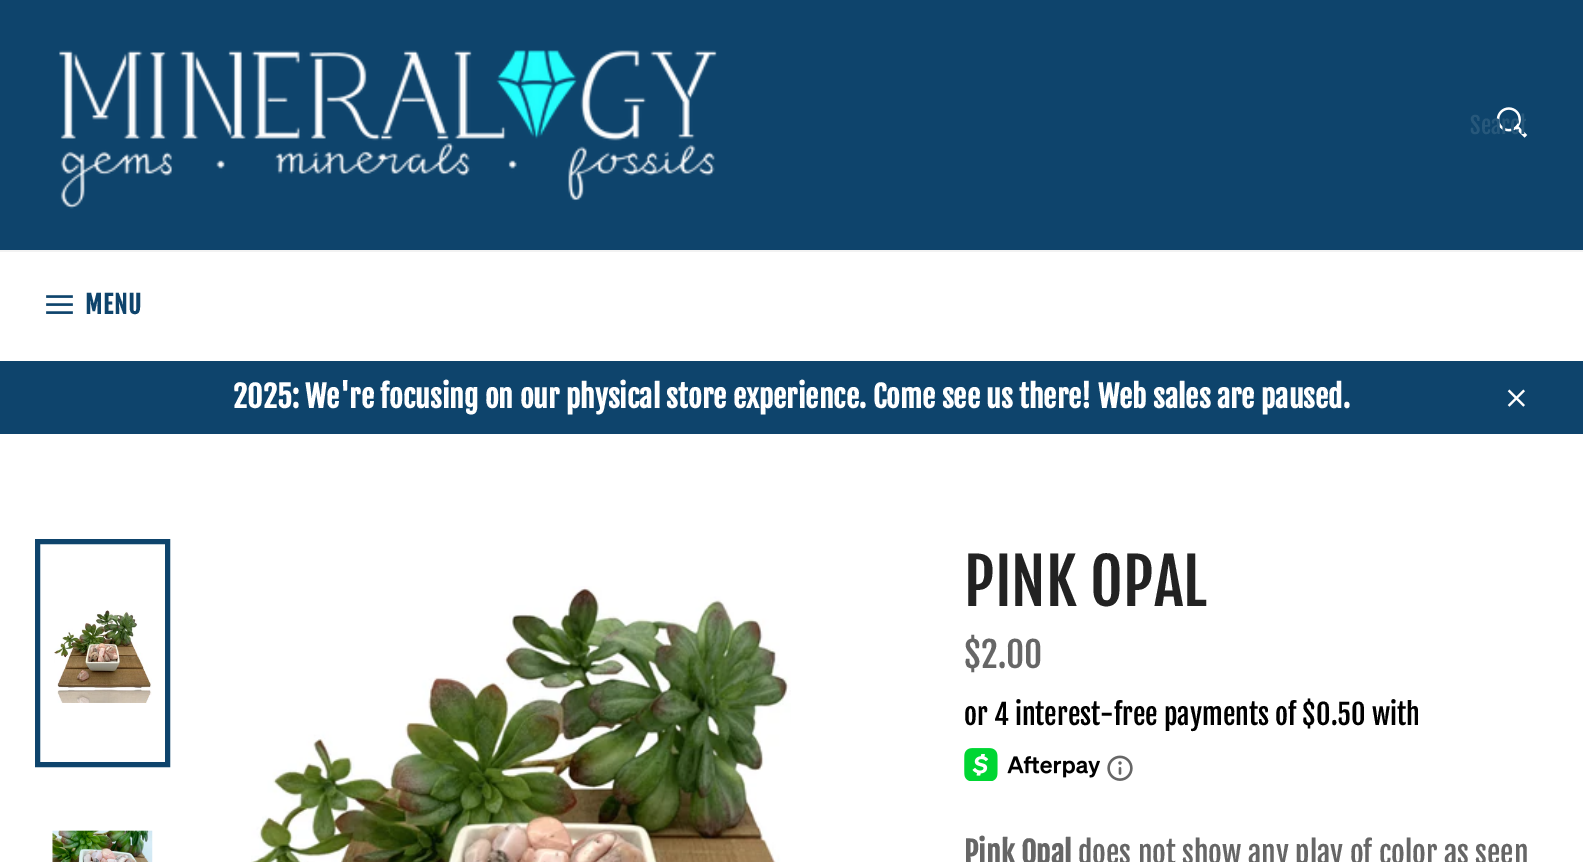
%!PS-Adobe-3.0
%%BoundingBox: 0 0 1583 862
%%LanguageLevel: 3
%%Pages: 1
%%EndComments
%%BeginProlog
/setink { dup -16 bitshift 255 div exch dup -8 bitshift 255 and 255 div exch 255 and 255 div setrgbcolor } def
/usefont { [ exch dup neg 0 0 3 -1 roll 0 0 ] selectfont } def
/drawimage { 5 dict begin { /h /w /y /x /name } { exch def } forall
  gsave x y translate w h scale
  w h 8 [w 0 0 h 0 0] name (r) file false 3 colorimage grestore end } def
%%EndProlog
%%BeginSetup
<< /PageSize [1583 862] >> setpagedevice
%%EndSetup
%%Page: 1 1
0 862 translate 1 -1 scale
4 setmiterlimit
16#FFFFFF setink
0 0 1583 862 rectfill
16#0E446C setink
0 0 1583 434 rectfill
(img1.raw) 59 50 658 159 drawimage
(img2.raw) 1496 107 32 31 drawimage
gsave
1470 112 56 28 rectclip
/FjallaOne-Regular 23 usefont
16#27587B setink
1470 134 moveto (Search) show
grestore
16#FFFFFF setink
0 252 1583 109 rectfill
16#F2F2F2 setink
0 250 1583 2 rectfill
(img3.raw) 46 295 27 19 drawimage
/FjallaOne-Bold 24.5 usefont
16#0E446C setink
85 314 moveto 1 0 (MENU) ashow
/FjallaOne-Bold 29.75 usefont
16#FFFFFF setink
233 408 moveto (2025: We're focusing on our physical store experience. Come see us there! Web sales are paused.) show
(img4.raw) 1507 389 18 18 drawimage
(img5.raw) 54 610 98 93 drawimage
16#0E446C setink
5 setlinewidth
37.5 541.5 130 223 rectstroke
(img6.raw) 52 830 101 32 drawimage
(img7.raw) 251 586 540 276 drawimage
/FjallaOne-Regular 63 usefont
16#222222 setink
964 606 moveto (PINK OPAL) show
/FjallaOne-Regular 35 usefont
16#666666 setink
964 668 moveto ($2.00) show
/FjallaOne-Regular 28 usefont
16#000000 setink
964 725 moveto (or 4 interest-free payments of $0.50 with) show
(img8.raw) 964 748 136 33 drawimage
(img9.raw) 1107 755 26 26 drawimage
/FjallaOne-Bold 29.75 usefont
16#666666 setink
964 864 moveto (Pink Opal) show
/FjallaOne-Regular 29.75 usefont
1078 864 moveto (does not show any play of color as seen) show
showpage
%%EOF
